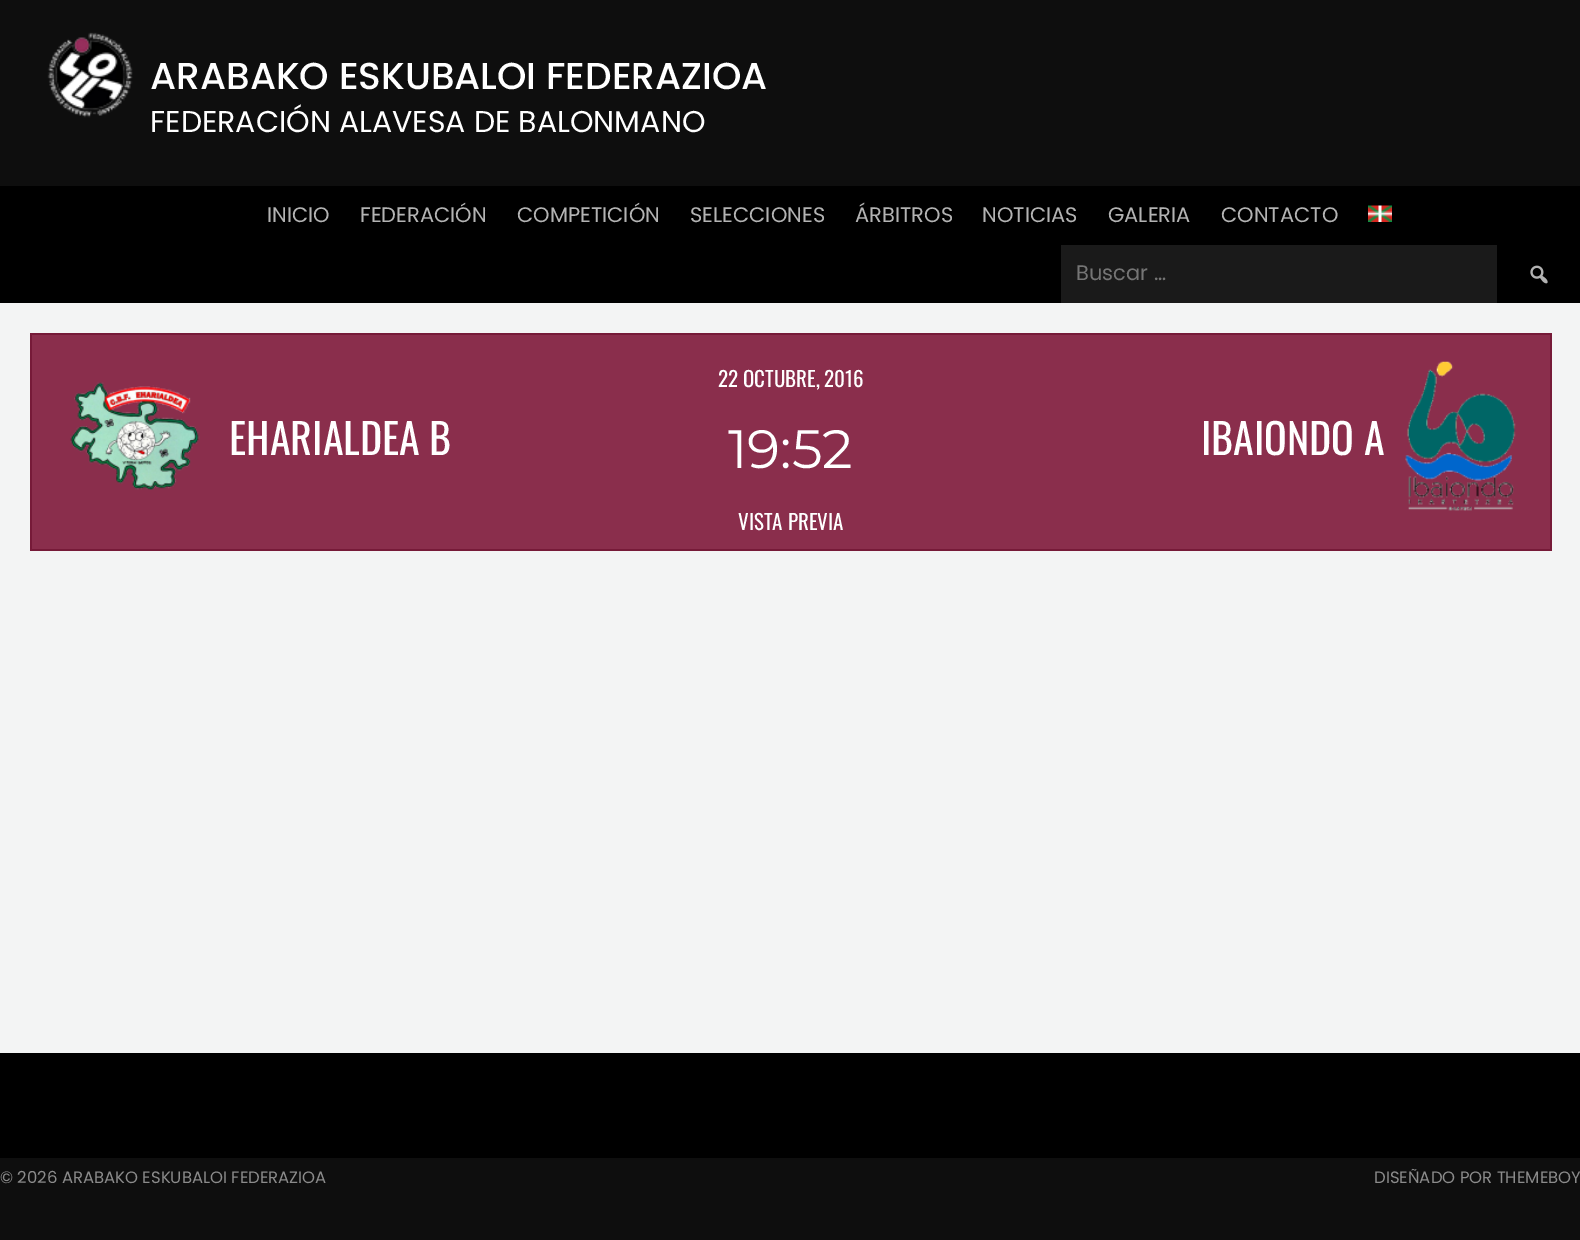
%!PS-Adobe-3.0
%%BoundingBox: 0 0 1580 1240
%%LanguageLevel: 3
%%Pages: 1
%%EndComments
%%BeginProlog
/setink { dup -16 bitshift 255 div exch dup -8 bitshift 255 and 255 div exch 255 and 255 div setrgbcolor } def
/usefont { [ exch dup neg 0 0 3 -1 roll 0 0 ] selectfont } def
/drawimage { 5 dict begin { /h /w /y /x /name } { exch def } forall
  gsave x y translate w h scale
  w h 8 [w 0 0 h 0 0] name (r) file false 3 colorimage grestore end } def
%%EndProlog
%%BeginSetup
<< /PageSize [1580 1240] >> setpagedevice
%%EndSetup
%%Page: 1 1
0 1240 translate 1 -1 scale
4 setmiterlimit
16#0E0E0E setink
0 0 1580 1240 rectfill
(img1.raw) 47 32 86 86 drawimage
/Poppins-Medium 37.5 usefont
16#FFFFFF setink
150 89 moveto (ARABAKO ESKUBALOI FEDERAZIOA) show
/Poppins-Regular 30 usefont
150 132 moveto (FEDERACIÓN ALAVESA DE BALONMANO) show
16#000000 setink
0 186 1580 117 rectfill
/Poppins-Regular 21 usefont
16#B3B3B3 setink
[
    [(INICIO) 267 222]
    [(FEDERACIÓN) 360 222]
    [(COMPETICIÓN) 517 222]
    [(SELECCIONES) 690 222]
    [(ÁRBITROS) 855 222]
    [(NOTICIAS) 982 222]
    [(GALERIA) 1108 222]
    [(CONTACTO) 1221 222]
] { aload pop moveto show } forall
(img2.raw) 1368 205 24 17 drawimage
16#1A1A1A setink
1061 245 436 58 rectfill
16#757575 setink
1076 280 moveto (Buscar …) show
(img3.raw) 1530 265 18 19 drawimage
[
    [0 303 1580 750 16#F3F4F4]
    [32 335 1518 214 16#8A2E4C]
    [30 333 1521 2 16#761A38]
    [1550 333 2 218 16#761A38]
    [30 549 1521 2 16#761A38]
    [30 333 2 218 16#761A38]
] { aload pop setink rectfill } forall
/Oswald-Regular 21 usefont
16#FFFFFF setink
718 387 moveto (22 OCTUBRE, 2016) show
(img4.raw) 70 382 130 108 drawimage
/Oswald-Regular 42 usefont
229 455 moveto (EHARIALDEA B) show
/Montserrat-Regular 54 usefont
728 468 moveto (19:52) show
/Oswald-Regular 42 usefont
1201 455 moveto (IBAIONDO A) show
(img5.raw) 1405 361 111 150 drawimage
/Oswald-Regular 21 usefont
738 530 moveto (VISTA PREVIA) show
16#000000 setink
0 1053 1580 105 rectfill
/Poppins-Regular 16.5 usefont
16#8B8B8B setink
0 1183 moveto (© 2026 ARABAKO ESKUBALOI FEDERAZIOA) show
1374 1183 moveto (DISEÑADO POR THEMEBOY) show
showpage
%%EOF
